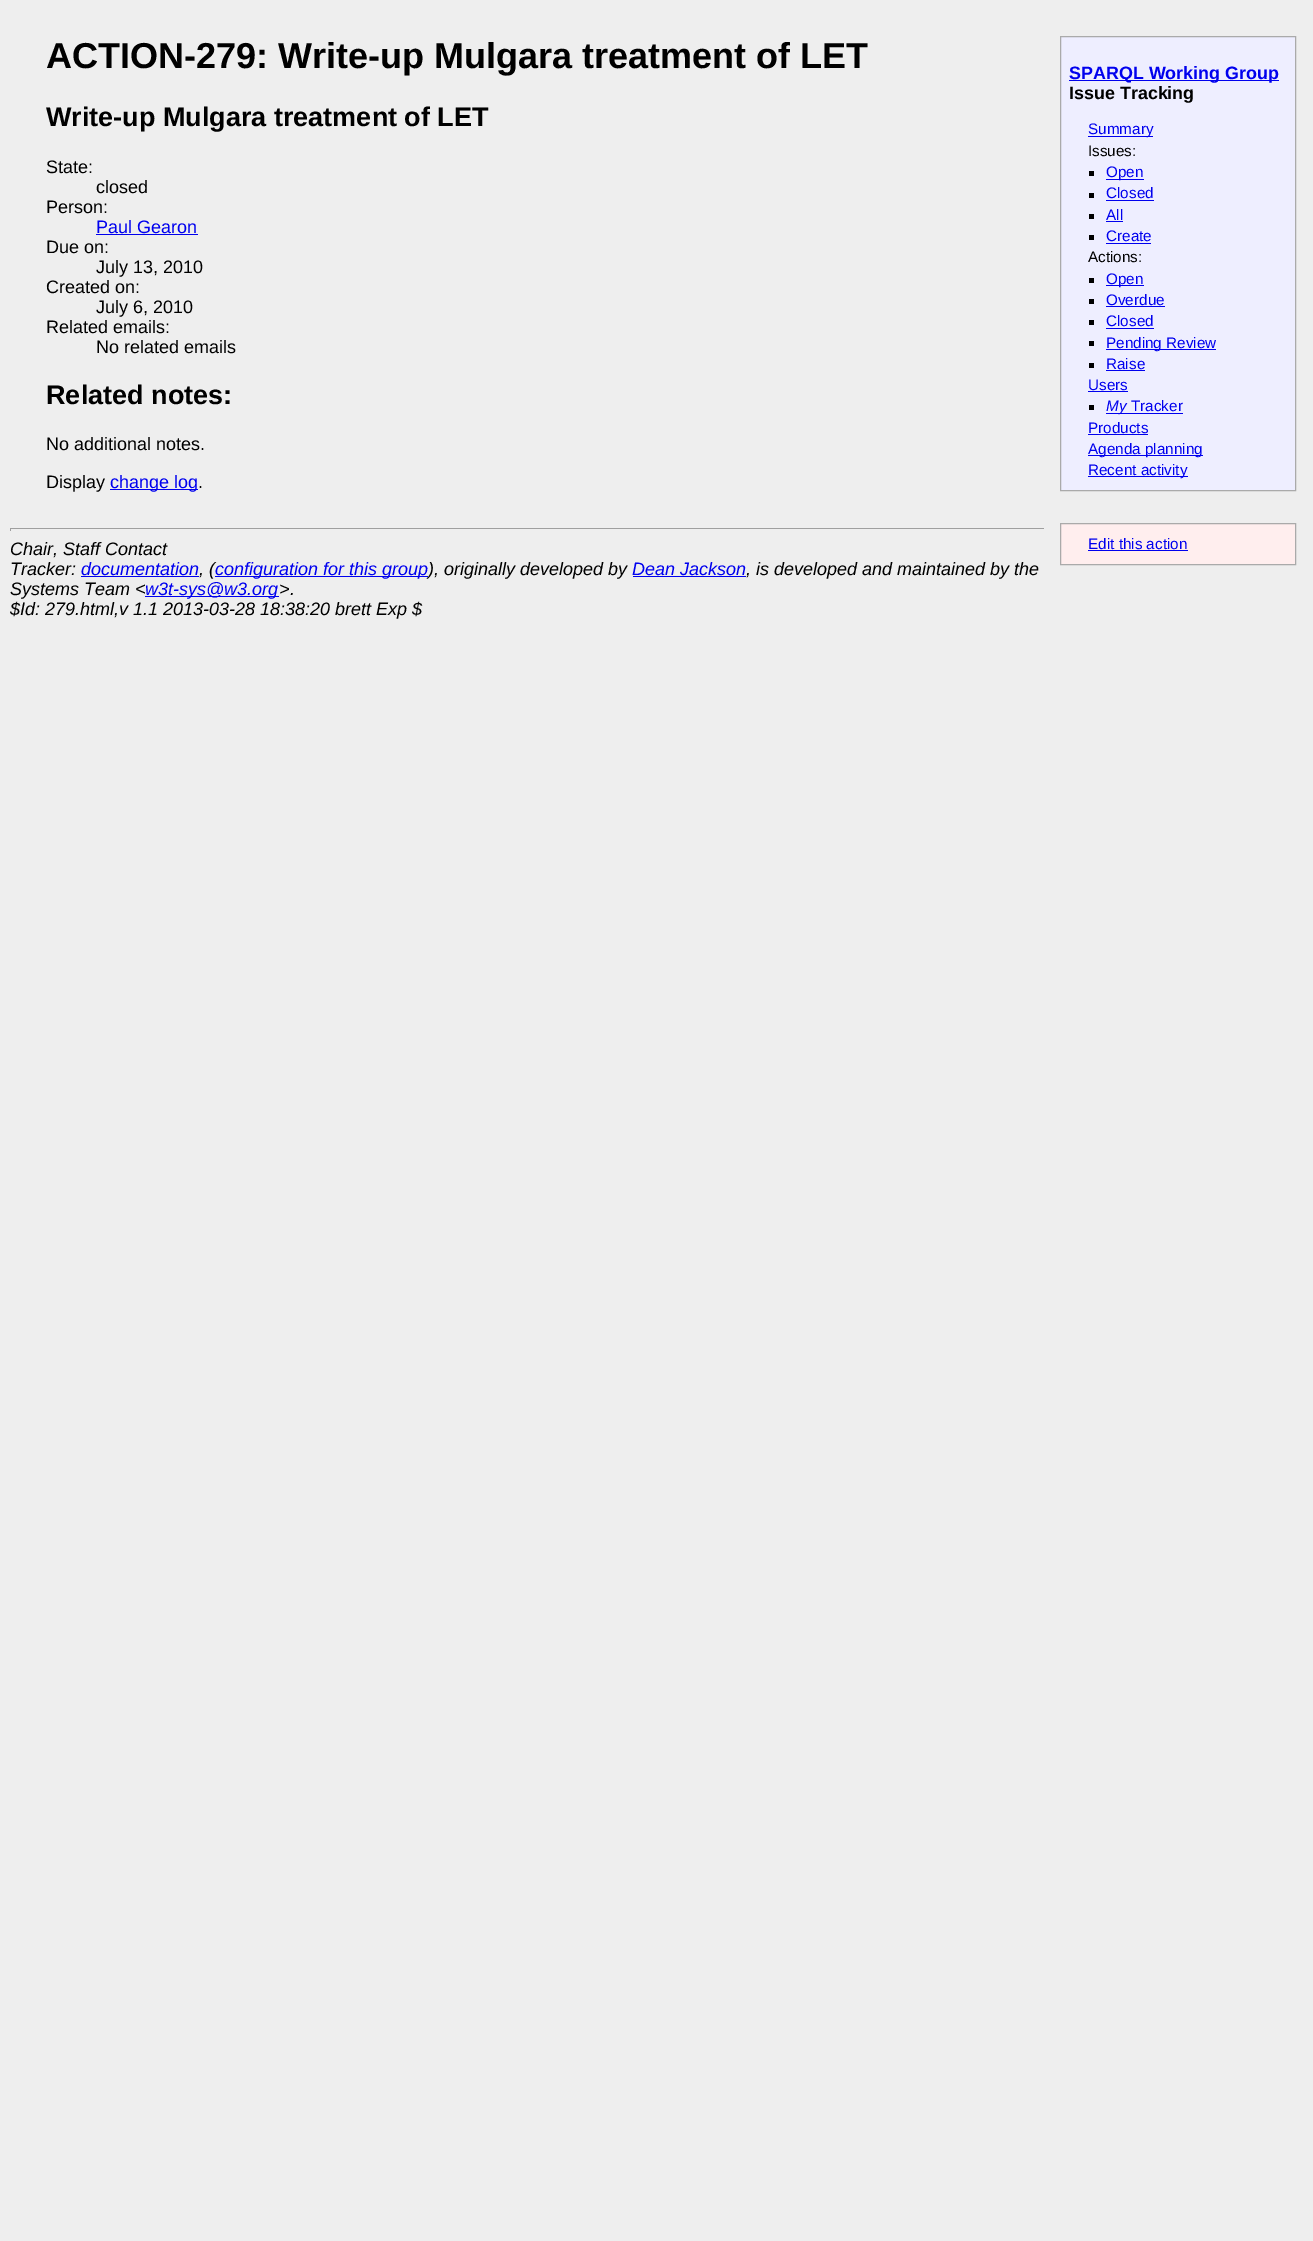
%!PS-Adobe-3.0
%%BoundingBox: 0 0 1313 2241
%%LanguageLevel: 3
%%Pages: 1
%%EndComments
%%BeginProlog
/setink { dup -16 bitshift 255 div exch dup -8 bitshift 255 and 255 div exch 255 and 255 div setrgbcolor } def
/usefont { [ exch dup neg 0 0 3 -1 roll 0 0 ] selectfont } def
%%EndProlog
%%BeginSetup
<< /PageSize [1313 2241] >> setpagedevice
%%EndSetup
%%Page: 1 1
0 2241 translate 1 -1 scale
4 setmiterlimit
16#EEEEEE setink
0 0 1313 2241 rectfill
/LiberationSans-Bold 36 usefont
16#000000 setink
46 68 moveto (ACTION-279: Write-up Mulgara treatment of LET) show
/LiberationSans-Bold 27 usefont
46 126 moveto (Write-up Mulgara treatment of LET) show
/LiberationSans-Regular 18 usefont
[
    [(State:) 46 173]
    [(closed) 96 193]
    [(Person:) 46 213]
] { aload pop moveto show } forall
16#0000EE setink
96 233 moveto (Paul Gearon) show
96 234 102 1 rectfill
16#000000 setink
[
    [(Due on:) 46 253]
    [(July 13, 2010) 96 273]
    [(Created on:) 46 293]
    [(July 6, 2010) 96 313]
    [(Related emails:) 46 333]
    [(No related emails) 96 353]
] { aload pop moveto show } forall
/LiberationSans-Bold 27 usefont
46 404 moveto (Related notes:) show
/LiberationSans-Regular 18 usefont
46 450 moveto (No additional notes.) show
46 488 moveto (Display) show
16#0000EE setink
110 489 88 1 rectfill
110 488 moveto (change log) show
16#000000 setink
198 488 moveto (.) show
16#EEEEFF setink
1060.5 36.5 moveto 1295.5 36.5 lineto 1295.5 490.5 lineto 1060.5 490.5 lineto closepath gsave fill grestore
16#AAAAAA setink
stroke
16#0000EE setink
1069 80 210 1 rectfill
/LiberationSans-Bold 17.9 usefont
1069 79 moveto (SPARQL Working Group) show
16#000000 setink
1069 99 moveto (Issue Tracking) show
16#0000EE setink
1088 136 65 1 rectfill
/LiberationSans-Regular 15.25 usefont
1088 134 moveto (Summary) show
16#000000 setink
1088 156 moveto (Issues:) show
1089 171 5 5 rectfill
16#0000EE setink
1106 179 38 1 rectfill
1106 177 moveto (Open) show
16#000000 setink
1089 193 5 5 rectfill
16#0000EE setink
1106 198 moveto (Closed) show
1106 200 48 1 rectfill
16#000000 setink
1089 214 5 5 rectfill
16#0000EE setink
1106 220 moveto (All) show
1106 221 17 1 rectfill
16#000000 setink
1089 235 5 5 rectfill
16#0000EE setink
1106 241 moveto (Create) show
1106 243 45 1 rectfill
16#000000 setink
1088 262 moveto (Actions:) show
1089 278 5 5 rectfill
16#0000EE setink
1106 285 38 1 rectfill
1106 284 moveto (Open) show
16#000000 setink
1089 299 5 5 rectfill
16#0000EE setink
1106 305 moveto (Overdue) show
1106 306 59 1 rectfill
16#000000 setink
1089 320 5 5 rectfill
16#0000EE setink
1106 326 moveto (Closed) show
[
    [1106 328 48 1 16#0000EE]
    [1089 341 5 5 16#000000]
    [1106 349 110 1 16#0000EE]
] { aload pop setink rectfill } forall
1106 348 moveto (Pending Review) show
16#000000 setink
1089 363 5 5 rectfill
16#0000EE setink
1106 369 moveto (Raise) show
1106 370 39 1 rectfill
1088 390 moveto (Users) show
[
    [1088 391 40 1 16#0000EE]
    [1089 405 5 5 16#000000]
    [1106 413 20 1 16#0000EE]
] { aload pop setink rectfill } forall
/LiberationSans-Italic 15.25 usefont
1106 411 moveto (My) show
1126 413 57 1 rectfill
/LiberationSans-Regular 15.25 usefont
1131 411 moveto (Tracker) show
1088 433 moveto (Products) show
1088 434 60 1 rectfill
1088 455 115 1 rectfill
1088 454 moveto (Agenda planning) show
1088 476 100 1 rectfill
1088 475 moveto (Recent activity) show
16#FFEEEE setink
1060.5 523.5 moveto 1295.5 523.5 lineto 1295.5 564.5 lineto 1060.5 564.5 lineto closepath gsave fill grestore
16#AAAAAA setink
stroke
16#0000EE setink
1088 549 moveto (Edit this action) show
[
    [1088 550 100 1 16#0000EE]
    [10 528 1035 1 16#9F9F9F]
    [1044 528 1 3 16#EEEEEE]
    [10 528 1 3 16#9F9F9F]
] { aload pop setink rectfill } forall
/LiberationSans-Italic 18 usefont
16#000000 setink
10 555 moveto (Chair, Staff Contact) show
10 575 moveto (Tracker:) show
16#0000EE setink
81 575 moveto (documentation) show
81 576 118 1 rectfill
16#000000 setink
199 575 moveto (, \() show
16#0000EE setink
215 576 213 1 rectfill
215 575 moveto (configuration for this group) show
16#000000 setink
428 575 moveto (\), originally developed by) show
16#0000EE setink
632 575 moveto (Dean Jackson) show
633 576 113 1 rectfill
16#000000 setink
746 575 moveto (, is developed and maintained by the) show
10 595 moveto (Systems Team <) show
16#0000EE setink
145 596 134 1 rectfill
145 595 moveto (w3t-sys@w3.org) show
16#000000 setink
279 595 moveto (>.) show
10 615 moveto ($Id: 279.html,v 1.1 2013-03-28 18:38:20 brett Exp $) show
showpage
%%EOF
